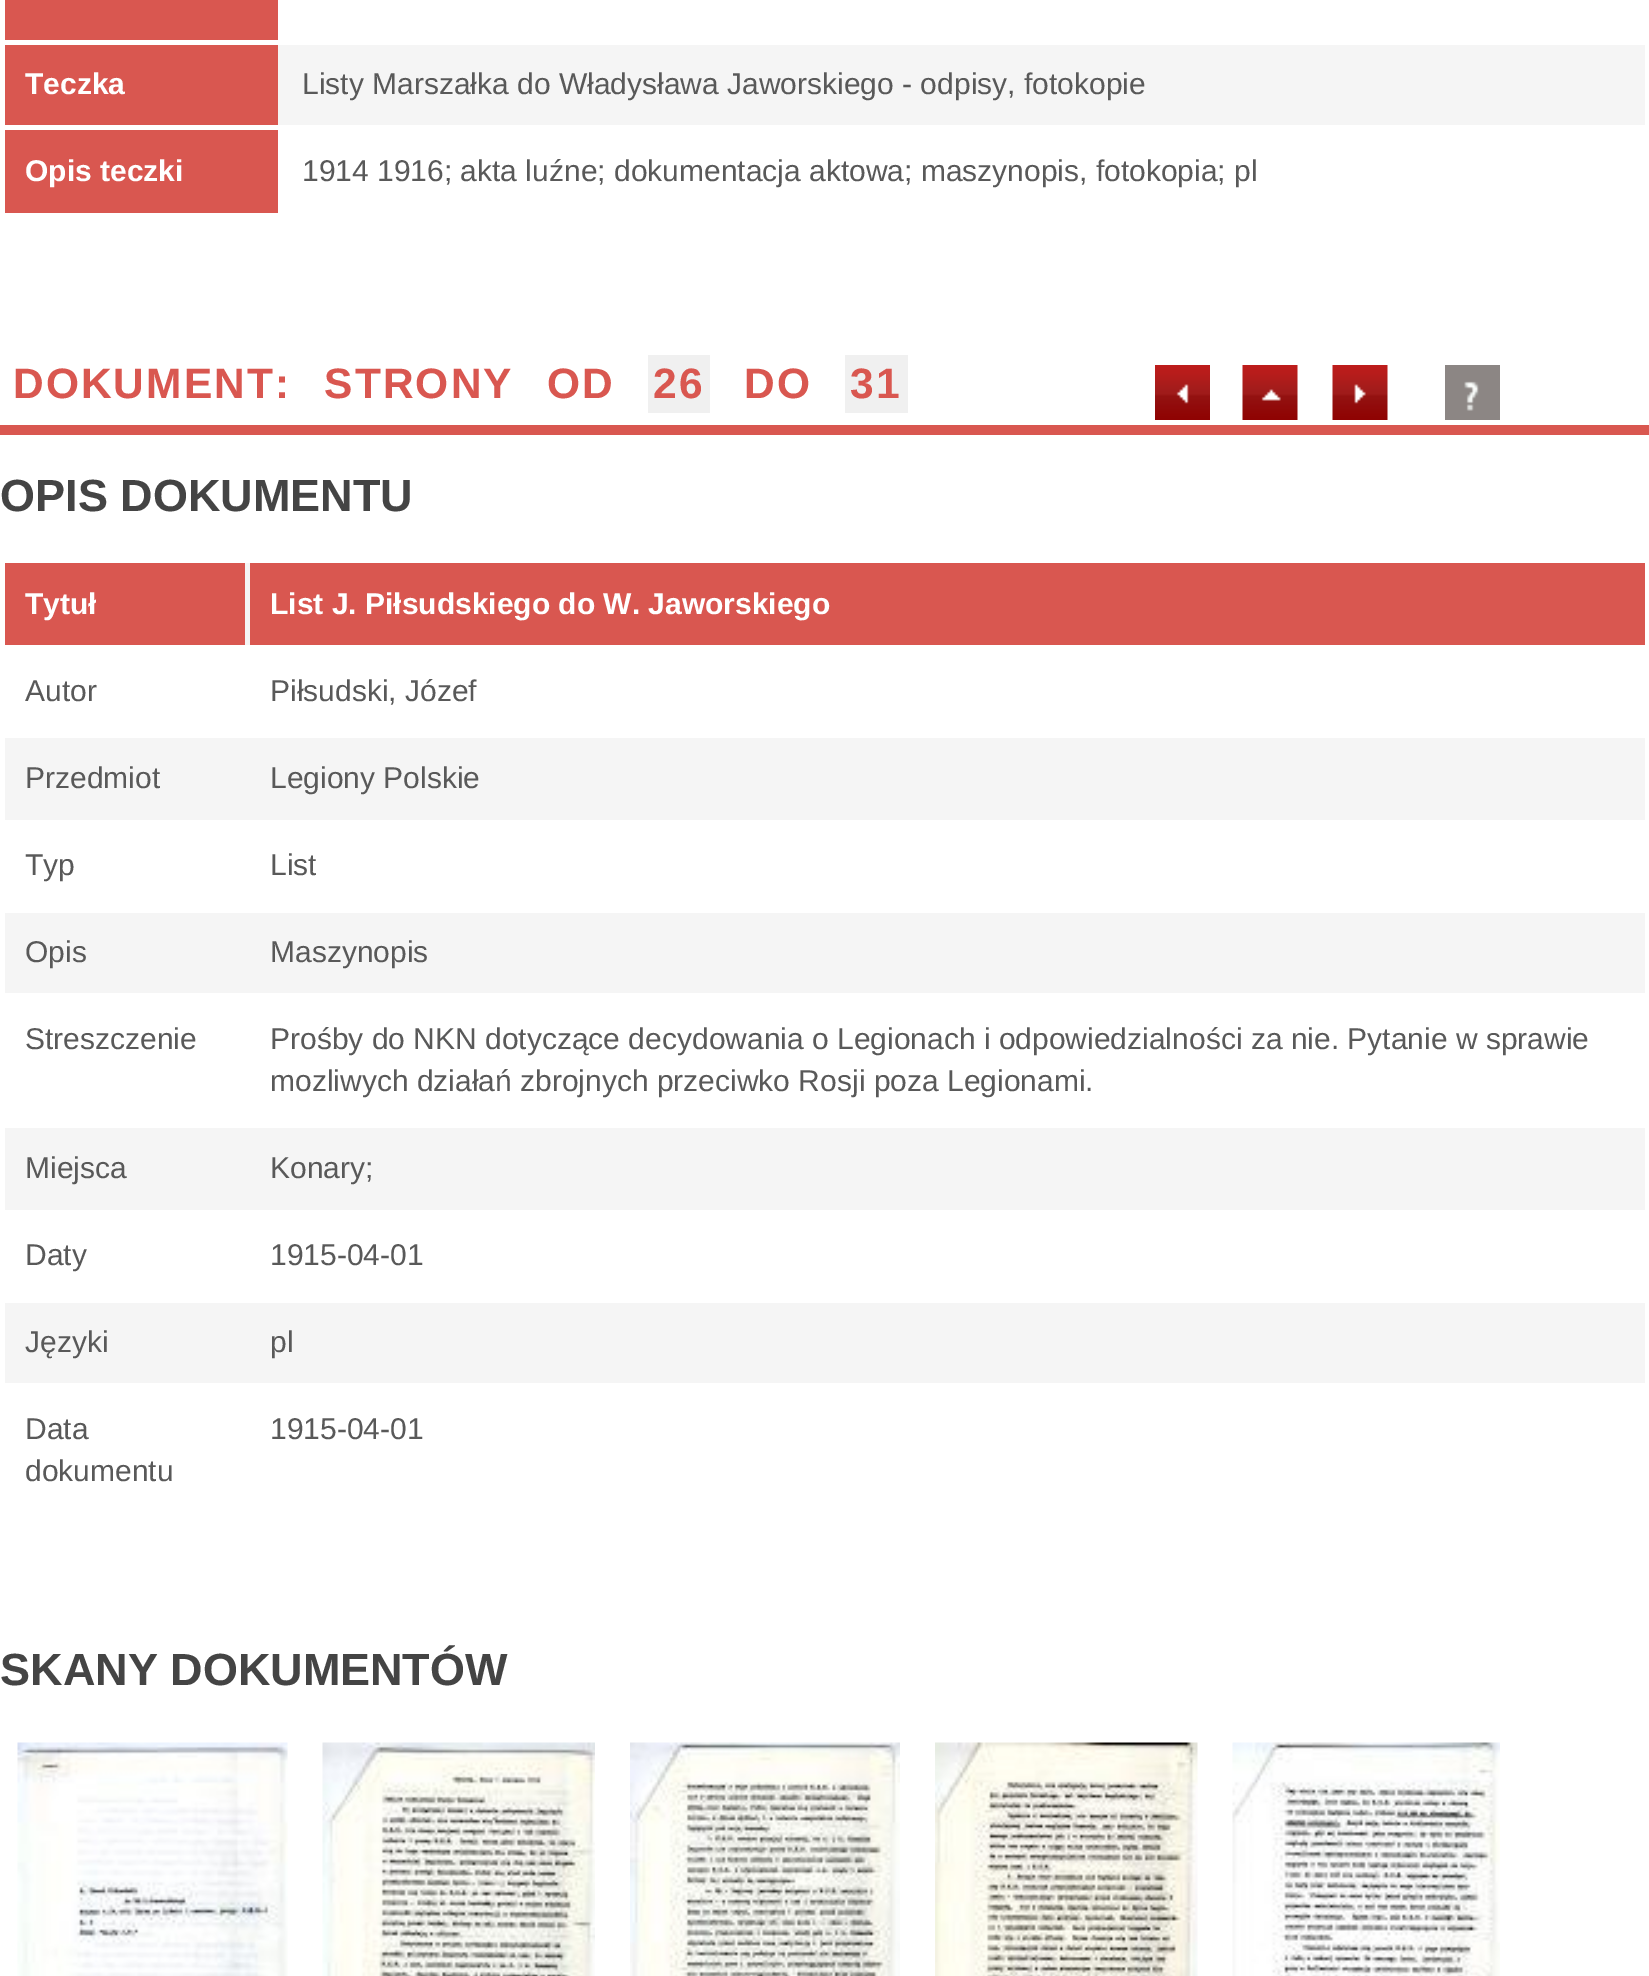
%!PS-Adobe-3.0
%%BoundingBox: 0 0 1649 1976
%%LanguageLevel: 3
%%Pages: 1
%%EndComments
%%BeginProlog
/setink { dup -16 bitshift 255 div exch dup -8 bitshift 255 and 255 div exch 255 and 255 div setrgbcolor } def
/usefont { [ exch dup neg 0 0 3 -1 roll 0 0 ] selectfont } def
/drawimage { 5 dict begin { /h /w /y /x /name } { exch def } forall
  gsave x y translate w h scale
  w h 8 [w 0 0 h 0 0] name (r) file false 3 colorimage grestore end } def
%%EndProlog
%%BeginSetup
<< /PageSize [1649 1976] >> setpagedevice
%%EndSetup
%%Page: 1 1
0 1976 translate 1 -1 scale
4 setmiterlimit
16#FFFFFF setink
0 0 1649 1976 rectfill
[
    [5 0 273 40 16#D95750]
    [278 45 1367 80 16#F5F5F5]
    [5 45 273 80 16#D95750]
] { aload pop setink rectfill } forall
/LiberationSans-Bold 30 usefont
16#FFFFFF setink
25 94 moveto (Teczka) show
/LiberationSans-Regular 30 usefont
16#595959 setink
302 94 moveto (Listy Marszałka do Władysława Jaworskiego - odpisy, fotokopie) show
16#D95750 setink
5 130 273 83 rectfill
/LiberationSans-Bold 30 usefont
16#FFFFFF setink
25 181 moveto (Opis teczki) show
/LiberationSans-Regular 30 usefont
16#595959 setink
302 181 moveto (1914 1916; akta luźne; dokumentacja aktowa; maszynopis, fotokopia; pl) show
/LiberationSans-Bold 42.5 usefont
16#D95750 setink
13 398 moveto 20 0 32 2 0 (DOKUMENT: STRONY OD) awidthshow
16#F0F0F0 setink
648 355 62 58 rectfill
16#D95750 setink
653 398 moveto 2 0 (26) ashow
744 398 moveto 2 0 (DO) ashow
16#F0F0F0 setink
845 355 63 58 rectfill
16#D95750 setink
850 398 moveto 2 0 (31) ashow
(img1.raw) 1155 365 55 55 drawimage
(img2.raw) 1242 365 56 55 drawimage
(img3.raw) 1332 365 56 55 drawimage
(img4.raw) 1445 365 55 55 drawimage
0 425 1649 10 rectfill
/LiberationSans-Bold 45 usefont
16#444444 setink
0 511 moveto (OPIS DOKUMENTU) show
16#F5F5F5 setink
245 563 5 82 rectfill
16#D95750 setink
5 563 240 82 rectfill
/LiberationSans-Bold 30 usefont
16#FFFFFF setink
25 614 moveto (Tytuł) show
16#D95750 setink
250 563 1395 82 rectfill
16#FFFFFF setink
270 614 moveto (List J. Piłsudskiego do W. Jaworskiego) show
/LiberationSans-Regular 30 usefont
16#595959 setink
25 701 moveto (Autor) show
270 701 moveto (Piłsudski, Józef) show
16#F5F5F5 setink
5 738 1640 82 rectfill
16#595959 setink
[
    [(Przedmiot) 25 788]
    [(Legiony Polskie) 270 788]
    [(Typ) 25 875]
    [(List) 270 875]
] { aload pop moveto show } forall
16#F5F5F5 setink
5 913 1640 80 rectfill
16#595959 setink
[
    [(Opis) 25 962]
    [(Maszynopis) 270 962]
    [(Streszczenie) 25 1049]
    [(Prośby do NKN dotyczące decydowania o Legionach i odpowiedzialności za nie. Pytanie w sprawie) 270 1049]
    [(mozliwych działań zbrojnych przeciwko Rosji poza Legionami.) 270 1091]
] { aload pop moveto show } forall
16#F5F5F5 setink
5 1128 1640 82 rectfill
16#595959 setink
[
    [(Miejsca) 25 1178]
    [(Konary;) 270 1178]
    [(Daty) 25 1265]
    [(1915-04-01) 270 1265]
] { aload pop moveto show } forall
16#F5F5F5 setink
5 1303 1640 80 rectfill
16#595959 setink
[
    [(Języki) 25 1352]
    [(pl) 270 1352]
    [(Data) 25 1439]
    [(dokumentu) 25 1481]
    [(1915-04-01) 270 1439]
] { aload pop moveto show } forall
/LiberationSans-Bold 45 usefont
16#444444 setink
0 1685 moveto (SKANY DOKUMENTÓW) show
(img5.raw) 17 1742 271 234 drawimage
(img6.raw) 322 1742 273 234 drawimage
(img7.raw) 630 1742 270 234 drawimage
(img8.raw) 935 1742 263 234 drawimage
(img9.raw) 1232 1742 268 234 drawimage
showpage
%%EOF
